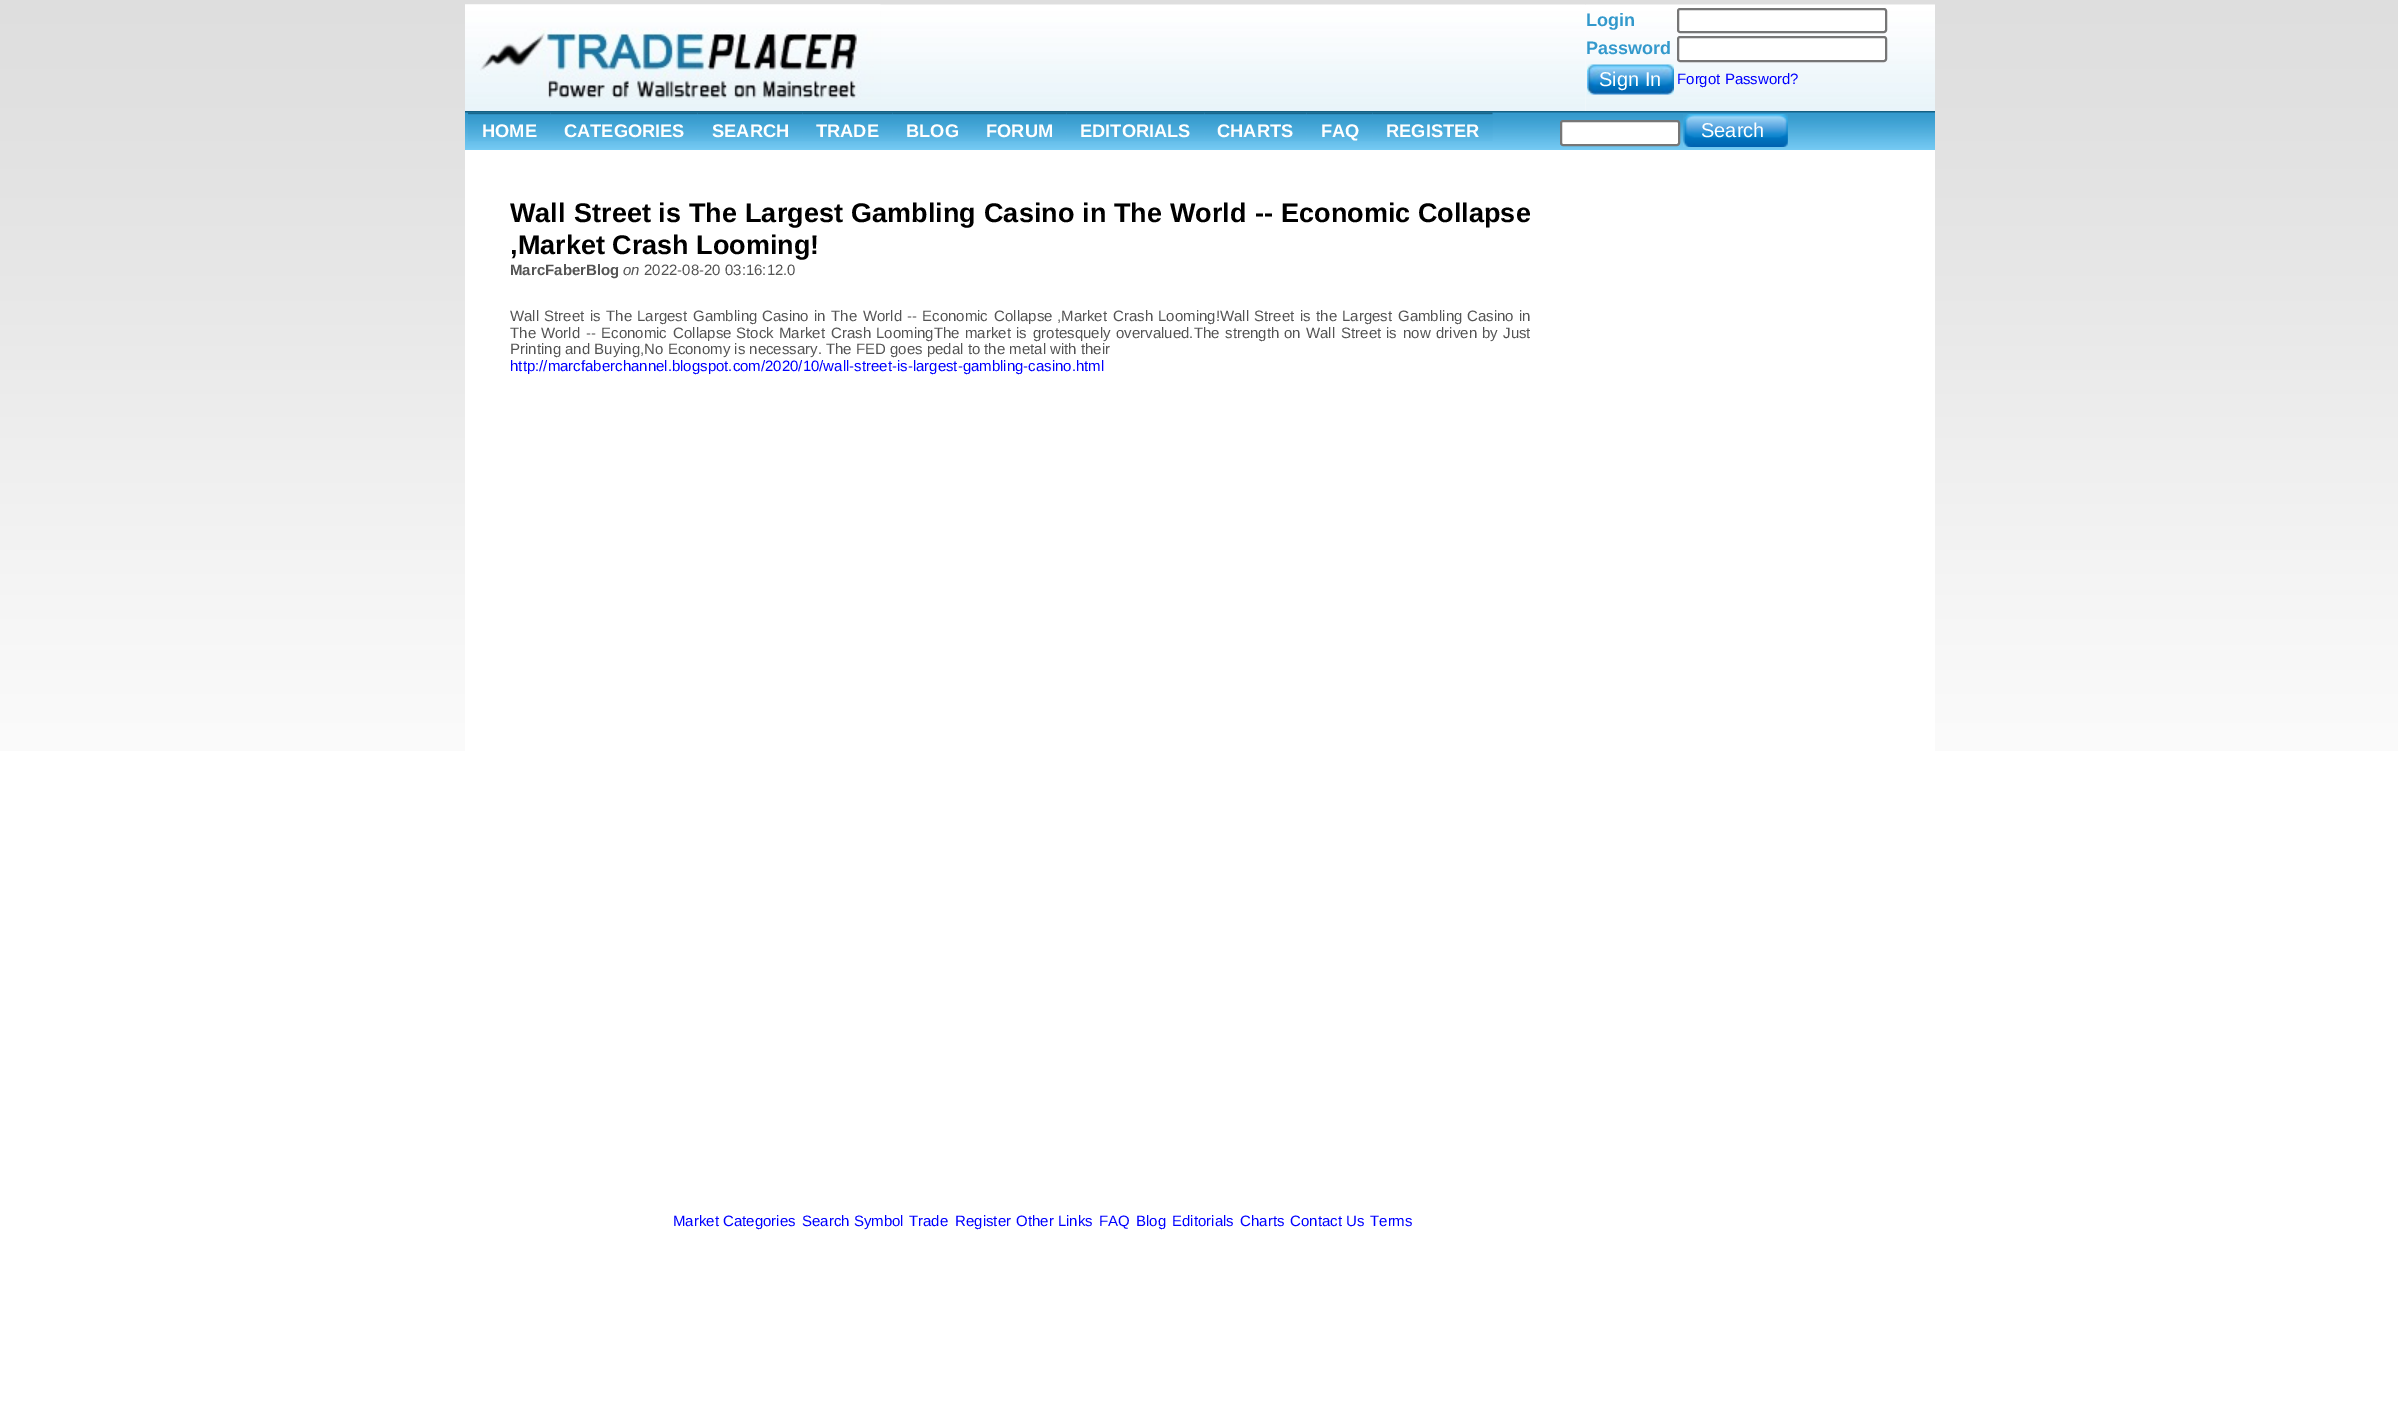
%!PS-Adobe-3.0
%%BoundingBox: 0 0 2398 1424
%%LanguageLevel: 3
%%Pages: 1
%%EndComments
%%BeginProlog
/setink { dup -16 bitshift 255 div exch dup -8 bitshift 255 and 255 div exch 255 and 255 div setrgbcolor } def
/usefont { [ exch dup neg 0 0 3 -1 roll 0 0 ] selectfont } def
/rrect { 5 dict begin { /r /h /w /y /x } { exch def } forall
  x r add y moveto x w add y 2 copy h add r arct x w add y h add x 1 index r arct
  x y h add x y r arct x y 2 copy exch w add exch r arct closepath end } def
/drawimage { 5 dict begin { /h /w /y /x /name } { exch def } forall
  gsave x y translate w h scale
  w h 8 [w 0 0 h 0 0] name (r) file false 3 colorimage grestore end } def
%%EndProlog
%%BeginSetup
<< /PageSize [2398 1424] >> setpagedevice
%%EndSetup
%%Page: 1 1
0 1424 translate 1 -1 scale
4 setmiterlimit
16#FFFFFF setink
0 0 2398 1424 rectfill
(img1.raw) 0 0 2398 751 drawimage
(img2.raw) 465 4 1121 107 drawimage
(img3.raw) 465 4 416 96 drawimage
(img4.raw) 1585 4 350 107 drawimage
/LiberationSans-Bold 18 usefont
16#3399CC setink
1586 26 moveto (Login) show
16#FFFFFF setink
1678 9 208 23 2 rrect gsave fill grestore
16#767676 setink
2 setlinewidth
stroke
16#3399CC setink
1586 54 moveto (Password) show
16#FFFFFF setink
1678 37 208 24 2 rrect gsave fill grestore
16#767676 setink
stroke
(img5.raw) 1587 64 87 31 drawimage
/LiberationSans-Regular 20 usefont
16#FFFFFF setink
1599 86 moveto (Sign In) show
/LiberationSans-Regular 15 usefont
16#0000FF setink
1677 84 moveto (Forgot Password?) show
(img6.raw) 465 111 1095 39 drawimage
(img7.raw) 468 112 83 29 drawimage
/LiberationSans-Bold 18.25 usefont
16#FFFFFF setink
482 137 moveto (HOME) show
(img8.raw) 550 112 148 29 drawimage
564 137 moveto (CATEGORIES) show
(img9.raw) 697 112 106 29 drawimage
712 137 moveto (SEARCH) show
(img10.raw) 802 112 91 29 drawimage
816 137 moveto (TRADE) show
(img11.raw) 892 112 80 29 drawimage
906 137 moveto (BLOG) show
(img12.raw) 972 112 95 29 drawimage
986 137 moveto (FORUM) show
(img13.raw) 1066 112 139 29 drawimage
1080 137 moveto (EDITORIALS) show
(img14.raw) 1204 112 103 29 drawimage
1217 137 moveto (CHARTS) show
(img15.raw) 1306 112 67 29 drawimage
1321 137 moveto (FAQ) show
(img16.raw) 1372 112 121 29 drawimage
1386 137 moveto (REGISTER) show
(img17.raw) 1560 111 375 39 drawimage
1561 121 118 24 2 rrect gsave fill grestore
16#767676 setink
stroke
(img18.raw) 1683 114 105 33 drawimage
/LiberationSans-Regular 20 usefont
16#FFFFFF setink
1701 137 moveto (Search) show
465 150 1470 601 rectfill
/LiberationSans-Bold 27 usefont
16#000000 setink
[
    [(Wall) 510 222]
    [(Street) 574 222]
    [(is) 658 222]
    [(The) 689 222]
    [(Largest) 745 222]
    [(Gambling) 851 222]
    [(Casino) 984 222]
    [(in) 1082 222]
    [(The) 1114 222]
    [(World) 1170 222]
    [(--) 1255 222]
    [(Economic) 1281 222]
    [(Collapse) 1418 222]
    [(,Market Crash Looming!) 510 254]
] { aload pop moveto show } forall
/LiberationSans-Bold 15 usefont
16#545454 setink
510 275 moveto (MarcFaberBlog) show
/LiberationSans-Italic 15 usefont
623 275 moveto (on) show
/LiberationSans-Regular 15 usefont
[
    [(2022-08-20 03:16:12.0) 644 275]
    [(Wall) 510 321]
    [(Street) 544 321]
    [(is) 590 321]
    [(The) 606 321]
    [(Largest) 637 321]
    [(Gambling) 693 321]
    [(Casino) 762 321]
    [(in) 814 321]
    [(The) 831 321]
    [(World) 863 321]
    [(--) 907 321]
    [(Economic) 922 321]
    [(Collapse) 994 321]
    [(,Market) 1057 321]
    [(Crash) 1113 321]
    [(Looming!Wall) 1158 321]
    [(Street) 1254 321]
    [(is) 1300 321]
    [(the) 1316 321]
    [(Largest) 1342 321]
    [(Gambling) 1398 321]
    [(Casino) 1467 321]
    [(in) 1519 321]
    [(The) 510 338]
    [(World) 541 338]
    [(--) 586 338]
    [(Economic) 601 338]
    [(Collapse) 673 338]
    [(Stock) 736 338]
    [(Market) 779 338]
    [(Crash) 831 338]
    [(LoomingThe) 876 338]
    [(market) 965 338]
    [(is) 1016 338]
    [(grotesquely) 1033 338]
    [(overvalued.The) 1116 338]
    [(strength) 1225 338]
    [(on) 1284 338]
    [(Wall) 1306 338]
    [(Street) 1341 338]
    [(is) 1386 338]
    [(now) 1403 338]
    [(driven) 1436 338]
    [(by) 1482 338]
    [(Just) 1503 338]
    [(Printing and Buying,No Economy is necessary. The FED goes pedal to the metal with their) 510 354]
] { aload pop moveto show } forall
16#0000FF setink
[
    [(http://marcfaberchannel.blogspot.com/2020/10/wall-street-is-largest-gambling-casino.html) 510 371]
    [(Market Categories) 673 1226]
    [(Search Symbol) 802 1226]
    [(Trade) 909 1226]
    [(Register) 955 1226]
    [(Other Links) 1016 1226]
    [(FAQ) 1099 1226]
    [(Blog) 1136 1226]
    [(Editorials) 1172 1226]
    [(Charts) 1240 1226]
    [(Contact Us) 1290 1226]
    [(Terms) 1370 1226]
] { aload pop moveto show } forall
showpage
%%EOF
